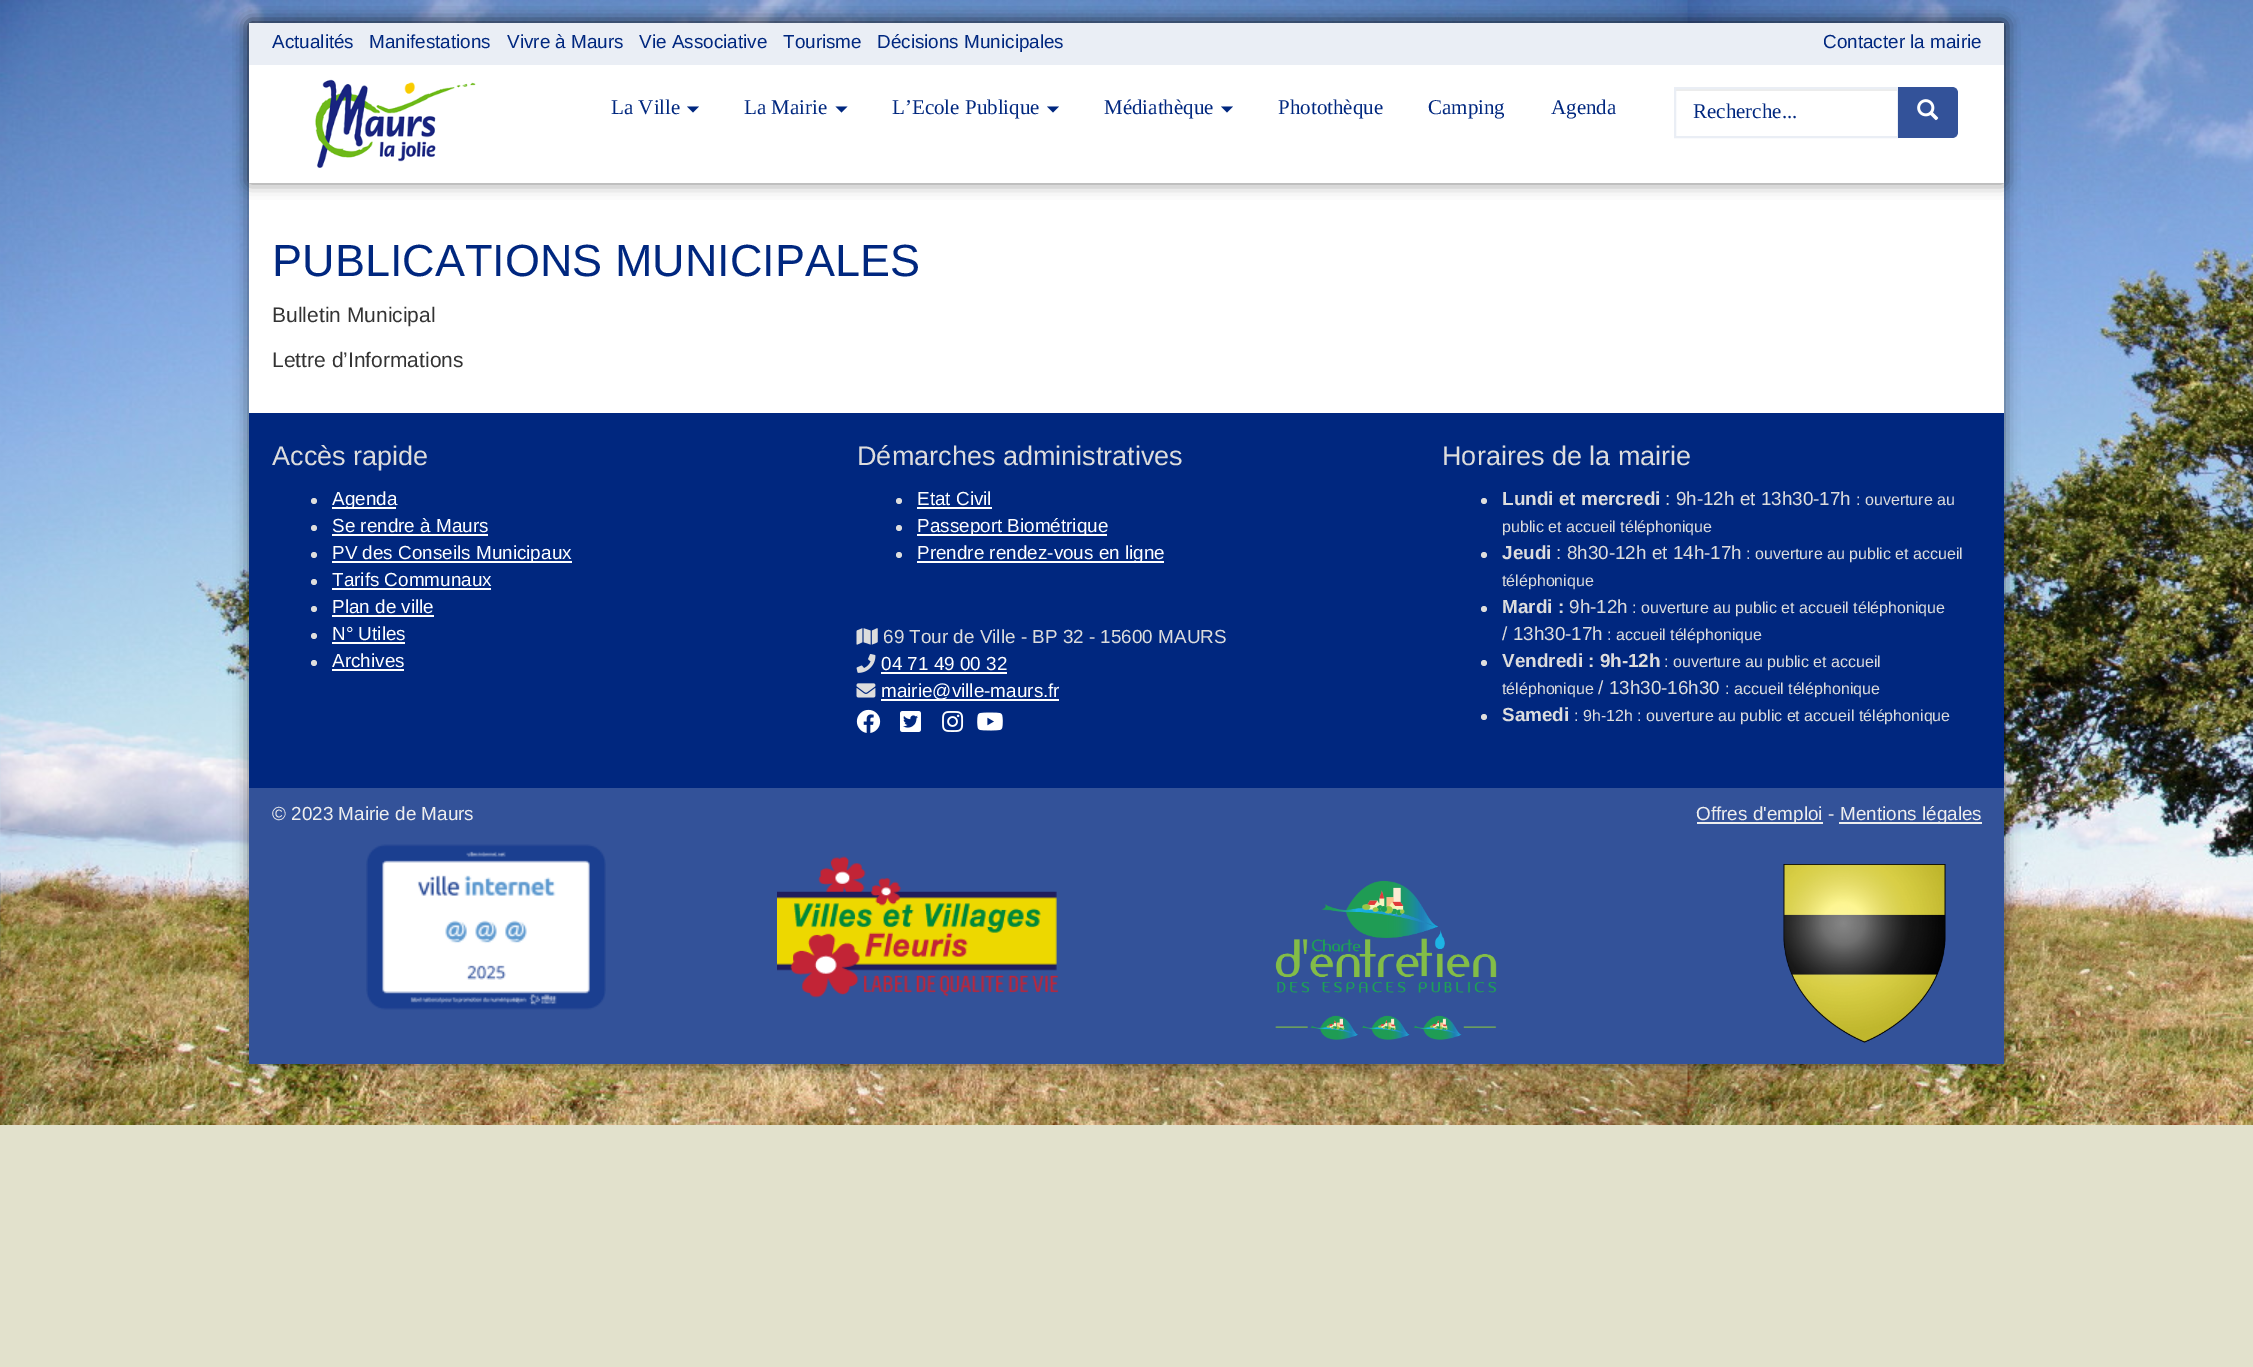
%!PS-Adobe-3.0
%%BoundingBox: 0 0 2253 1367
%%LanguageLevel: 3
%%Pages: 1
%%EndComments
%%BeginProlog
/setink { dup -16 bitshift 255 div exch dup -8 bitshift 255 and 255 div exch 255 and 255 div setrgbcolor } def
/usefont { [ exch dup neg 0 0 3 -1 roll 0 0 ] selectfont } def
/setalpha { dup .setfillconstantalpha .setstrokeconstantalpha } def
/disc { newpath 0 360 arc closepath } def
/rrect { 5 dict begin { /r /h /w /y /x } { exch def } forall
  x r add y moveto x w add y 2 copy h add r arct x w add y h add x 1 index r arct
  x y h add x y r arct x y 2 copy exch w add exch r arct closepath end } def
/softshadow { 12 dict begin { /a /b /q /h /w /y /x } { exch def } forall gsave /was 0 def
  9 -2 -9 { dup b mul 4 div /e exch def 1 sub .425 mul 2.718 exch exp 1 add a .99 .min exch div /now exch def
    1 1 now sub 1 was sub div sub setalpha /was now def
    w h .min e 2 mul add 0 gt { x e sub y e sub w e 2 mul add h e 2 mul add
      q e add b .6 mul add w h .min 2 div e add .min 0 .max rrect fill } if } for grestore end } def
/drawimage { 5 dict begin { /h /w /y /x /name } { exch def } forall
  gsave x y translate w h scale
  w h 8 [w 0 0 h 0 0] name (r) file false 3 colorimage grestore end } def
%%EndProlog
%%BeginSetup
<< /PageSize [2253 1367] /PageUsesTransparency true >> setpagedevice
%%EndSetup
%%Page: 1 1
0 .pushpdf14devicefilter
0 1367 translate 1 -1 scale
4 setmiterlimit
16#E2E1CC setink
0 0 2253 1367 rectfill
(img1.raw) 0 0 2253 1125 drawimage
16#000000 setink
249 23 1755 1041 0 7.5 0.5 softshadow
16#FFFFFF setink
249 183 1755 230 rectfill
16#000000 setink
249 23 1755 160 0 7.5 0.5 softshadow
16#FFFFFF setink
249 65 1755 118 rectfill
16#EAEEF5 setink
249 23 1755 42 rectfill
/LiberationSans-Regular 18.9 usefont
16#00277F setink
[
    [(Actualités) 272 48]
    [(Manifestations) 369 48]
    [(Vivre à Maurs) 507 48]
    [(Vie Associative) 639 48]
    [(Tourisme) 783 48]
    [(Décisions Municipales) 877 48]
    [(Contacter la mairie) 1823 48]
] { aload pop moveto show } forall
(img2.raw) 315 79 161 89 drawimage
/LiberationSerif-Regular 21 usefont
611 114 moveto (La Ville) show
687 106.5 moveto 699 106.5 lineto 693 112.5 lineto closepath fill
744 114 moveto (La Mairie) show
835.5 106.5 moveto 847.5 106.5 lineto 841.5 112.5 lineto closepath fill
892 114 moveto (L’Ecole Publique) show
1047 106.5 moveto 1059 106.5 lineto 1053 112.5 lineto closepath fill
1104 114 moveto (Médiathèque) show
1221 106.5 moveto 1233 106.5 lineto 1227 112.5 lineto closepath fill
[
    [(Photothèque) 1278 114]
    [(Camping) 1428 114]
    [(Agenda) 1551 114]
] { aload pop moveto show } forall
16#ECECEC setink
1676 89 222 2 rectfill
16#EAEEF5 setink
2 setlinewidth
1675 88 223 49 rectstroke
16#00277F setink
1693 118 moveto (Recherche...) show
16#335299 setink
1898 87 moveto 1952 87 lineto 1955.5 87 1958 89.5 1958 93 curveto 1958 132 lineto 1958 135.5 1955.5 138 1952 138 curveto 1898 138 lineto closepath fill
(img3.raw) 1917 99 22 22 drawimage
/LiberationSans-Regular 45 usefont
16#00277F setink
272 276 moveto (PUBLICATIONS MUNICIPALES) show
/LiberationSans-Regular 21 usefont
16#333333 setink
272 322 moveto (Bulletin Municipal) show
272 367 moveto (Lettre d’Informations) show
16#00277F setink
249 413 1755 375 rectfill
/LiberationSans-Regular 27 usefont
16#DDDDDD setink
272 465 moveto (Accès rapide) show
314 501 3 disc fill
16#FFFFFF setink
332 507 64 2 rectfill
/LiberationSans-Regular 18.9 usefont
332 505 moveto (Agenda) show
16#DDDDDD setink
314 528 3 disc fill
16#FFFFFF setink
332 532 moveto (Se rendre à Maurs) show
332 534 156 2 rectfill
16#DDDDDD setink
314 555 3 disc fill
16#FFFFFF setink
332 561 240 2 rectfill
332 559 moveto (PV des Conseils Municipaux) show
16#DDDDDD setink
314 582 3 disc fill
16#FFFFFF setink
332 586 moveto (Tarifs Communaux) show
332 588 159 2 rectfill
16#DDDDDD setink
314 609 3 disc fill
16#FFFFFF setink
332 613 moveto (Plan de ville) show
332 615 102 2 rectfill
16#DDDDDD setink
314 636 3 disc fill
16#FFFFFF setink
332 640 moveto (N° Utiles) show
332 642 73 2 rectfill
16#DDDDDD setink
314 663 3 disc fill
16#FFFFFF setink
332 667 moveto (Archives) show
332 669 72 2 rectfill
/LiberationSans-Regular 27 usefont
16#DDDDDD setink
857 465 moveto (Démarches administratives) show
899 501 3 disc fill
/LiberationSans-Regular 18.9 usefont
16#FFFFFF setink
917 505 moveto (Etat Civil) show
917 507 75 2 rectfill
16#DDDDDD setink
899 528 3 disc fill
16#FFFFFF setink
917 534 190 2 rectfill
917 532 moveto (Passeport Biométrique) show
16#DDDDDD setink
899 555 3 disc fill
16#FFFFFF setink
917 561 247 2 rectfill
917 559 moveto (Prendre rendez-vous en ligne) show
(img4.raw) 856 628 22 17 drawimage
16#DDDDDD setink
883 643 moveto (69 Tour de Ville - BP 32 - 15600 MAURS) show
(img5.raw) 856 654 20 19 drawimage
16#FFFFFF setink
881 670 moveto (04 71 49 00 32) show
881 672 126 2 rectfill
(img6.raw) 856 683 20 15 drawimage
881 699 178 2 rectfill
881 697 moveto (mairie@ville-maurs.fr) show
(img7.raw) 856 709 25 24 drawimage
(img8.raw) 900 711 21 21 drawimage
(img9.raw) 942 711 22 21 drawimage
(img10.raw) 977 712 26 19 drawimage
/LiberationSans-Regular 27 usefont
16#DDDDDD setink
1442 465 moveto (Horaires de la mairie) show
1484 501 3 disc fill
/LiberationSans-Bold 18.9 usefont
1502 505 moveto (Lundi et mercredi) show
/LiberationSans-Regular 18.9 usefont
1665 505 moveto (: 9h-12h et 13h30-17h) show
/LiberationSans-Regular 16 usefont
1856 505 moveto (: ouverture au) show
1502 532 moveto (public et accueil téléphonique) show
1484 555 3 disc fill
/LiberationSans-Bold 18.9 usefont
1502 559 moveto (Jeudi) show
/LiberationSans-Regular 18.9 usefont
1556 559 moveto (: 8h30-12h et 14h-17h) show
/LiberationSans-Regular 16 usefont
1746 559 moveto (: ouverture au public et accueil) show
1502 586 moveto (téléphonique) show
1484 609 3 disc fill
/LiberationSans-Bold 18.9 usefont
1502 613 moveto (Mardi :) show
/LiberationSans-Regular 18.9 usefont
1569 613 moveto (9h-12h) show
/LiberationSans-Regular 16 usefont
1632 613 moveto (: ouverture au public et accueil téléphonique) show
/LiberationSans-Regular 18.9 usefont
1502 640 moveto (/ 13h30-17h) show
/LiberationSans-Regular 16 usefont
1607 640 moveto (: accueil téléphonique) show
1484 663 3 disc fill
/LiberationSans-Bold 18.9 usefont
1502 667 moveto (Vendredi : 9h-12h) show
/LiberationSans-Regular 16 usefont
1664 667 moveto (: ouverture au public et accueil) show
1502 694 moveto (téléphonique) show
/LiberationSans-Regular 18.9 usefont
1598 694 moveto (/ 13h30-16h30) show
/LiberationSans-Regular 16 usefont
1725 694 moveto (: accueil téléphonique) show
1484 717 3 disc fill
/LiberationSans-Bold 18.9 usefont
1502 721 moveto (Samedi) show
/LiberationSans-Regular 16 usefont
1574 721 moveto (: 9h-12h : ouverture au public et accueil téléphonique) show
16#335299 setink
249 788 1755 276 rectfill
/LiberationSans-Regular 18.9 usefont
16#EEEEEE setink
272 820 moveto (© 2023 Mairie de Maurs) show
1697 822 126 2 rectfill
1696 820 moveto (Offres d'emploi -) show
1839 822 143 2 rectfill
1840 820 moveto (Mentions légales) show
(img11.raw) 366 844 240 166 drawimage
(img12.raw) 777 856 282 142 drawimage
(img13.raw) 1275 880 222 160 drawimage
(img14.raw) 1783 864 163 179 drawimage
.poppdf14devicefilter showpage
%%EOF
